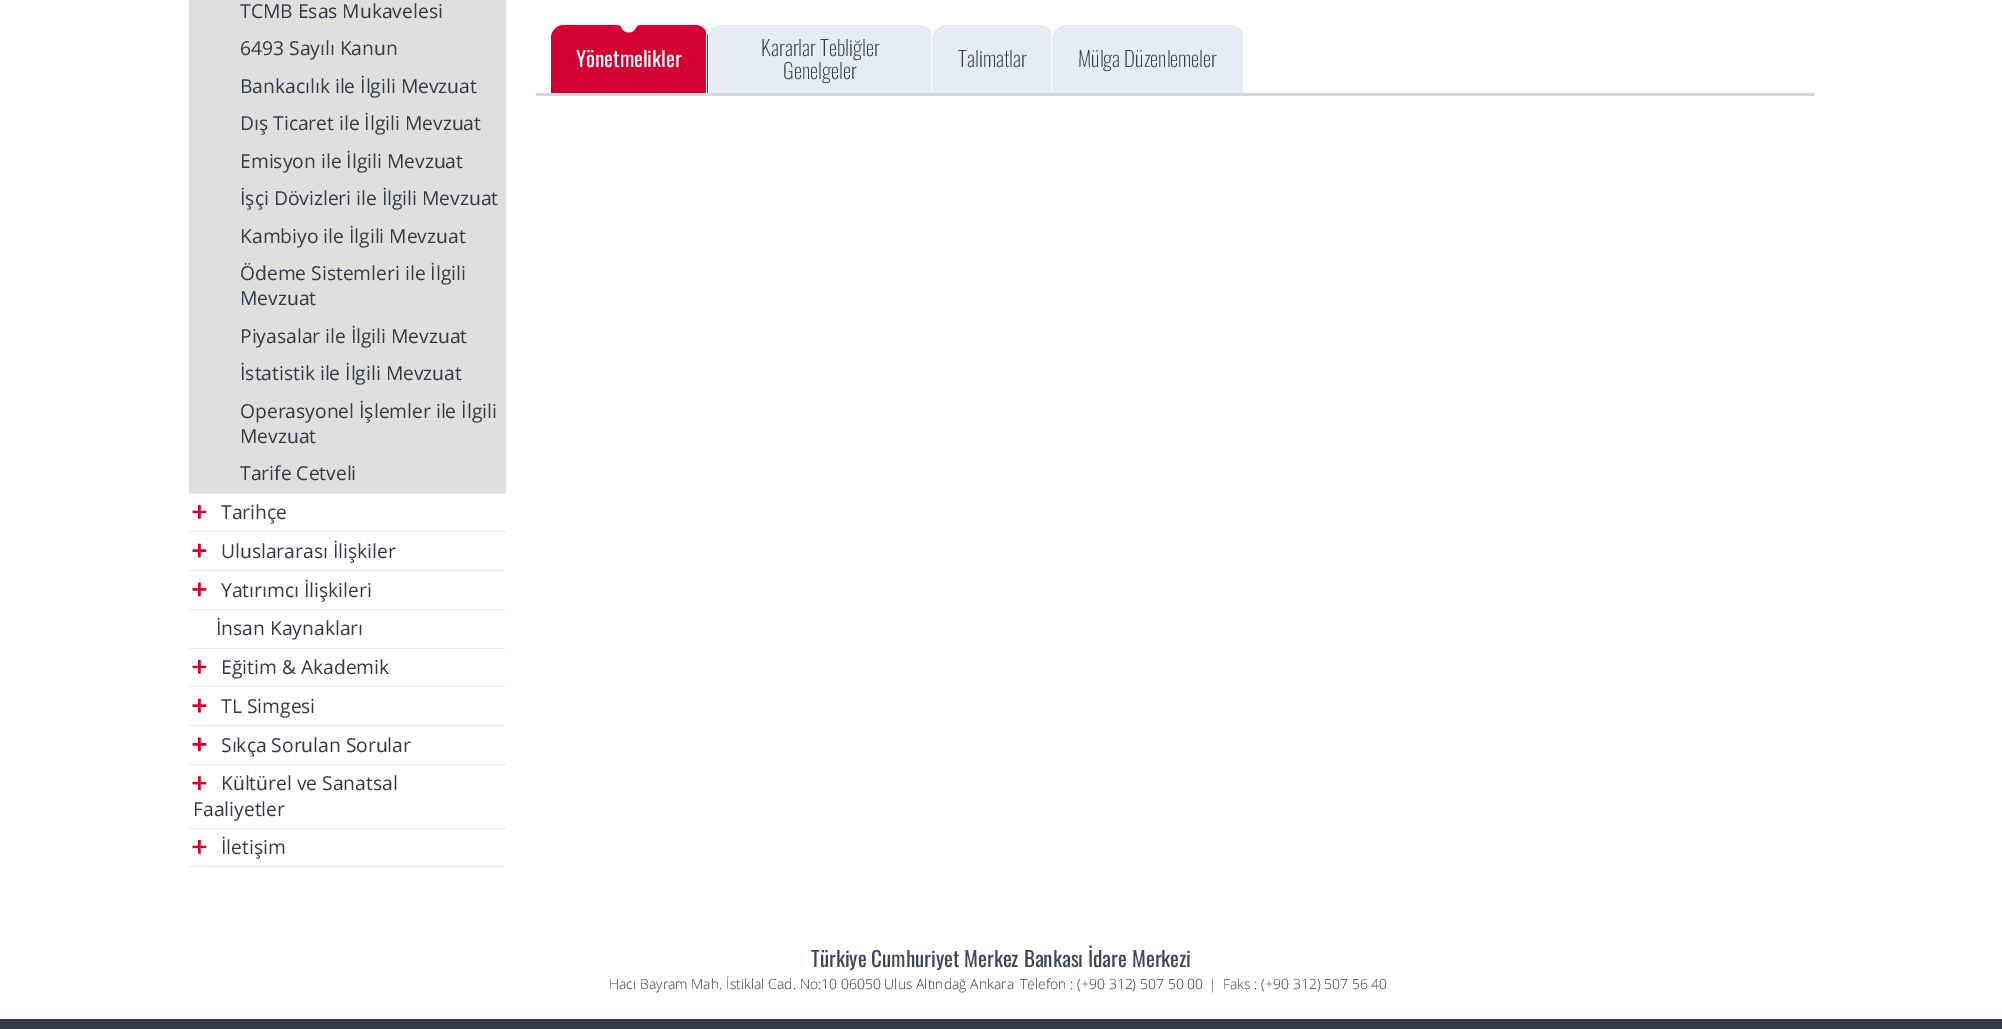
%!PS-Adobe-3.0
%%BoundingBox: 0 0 2002 1029
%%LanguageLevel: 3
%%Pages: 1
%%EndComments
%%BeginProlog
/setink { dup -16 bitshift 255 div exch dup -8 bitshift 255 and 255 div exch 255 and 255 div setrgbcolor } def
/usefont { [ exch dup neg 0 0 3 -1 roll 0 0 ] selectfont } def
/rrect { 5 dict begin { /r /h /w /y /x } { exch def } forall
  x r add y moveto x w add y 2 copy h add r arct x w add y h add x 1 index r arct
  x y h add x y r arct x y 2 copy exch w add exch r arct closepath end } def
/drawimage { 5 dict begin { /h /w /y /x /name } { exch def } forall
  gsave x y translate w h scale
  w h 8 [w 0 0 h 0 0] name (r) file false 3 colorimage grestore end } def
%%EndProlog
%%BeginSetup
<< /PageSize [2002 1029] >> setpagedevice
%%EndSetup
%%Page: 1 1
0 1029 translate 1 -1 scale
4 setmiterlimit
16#FFFFFF setink
0 0 2002 1029 rectfill
16#E6ECF5 setink
189 493 317 1 rectfill
16#DFDFDF setink
189 0 317 493 rectfill
/OpenSans-Regular 19.25 usefont
16#323A47 setink
[
    [(TCMB Esas Mukavelesi) 240 18]
    [(6493 Sayılı Kanun) 240 55]
    [(Bankacılık ile İlgili Mevzuat) 240 93]
    [(Dış Ticaret ile İlgili Mevzuat) 240 130]
    [(Emisyon ile İlgili Mevzuat) 240 168]
    [(İşçi Dövizleri ile İlgili Mevzuat) 240 205]
    [(Kambiyo ile İlgili Mevzuat) 240 243]
    [(Ödeme Sistemleri ile İlgili) 240 280]
    [(Mevzuat) 240 305]
    [(Piyasalar ile İlgili Mevzuat) 240 343]
    [(İstatistik ile İlgili Mevzuat) 240 380]
    [(Operasyonel İşlemler ile İlgili) 240 418]
    [(Mevzuat) 240 443]
    [(Tarife Cetveli) 240 480]
] { aload pop moveto show } forall
16#E6ECF5 setink
189 531 317 1 rectfill
(img1.raw) 192 505 15 14 drawimage
16#323A47 setink
221 519 moveto (Tarihçe) show
16#E6ECF5 setink
189 570 317 1 rectfill
(img2.raw) 192 543 15 15 drawimage
16#323A47 setink
221 558 moveto (Uluslararası İlişkiler) show
16#E6ECF5 setink
189 609 317 1 rectfill
(img3.raw) 192 582 15 15 drawimage
16#323A47 setink
221 597 moveto (Yatırımcı İlişkileri) show
16#E6ECF5 setink
189 648 317 1 rectfill
16#323A47 setink
216 635 moveto (İnsan Kaynakları) show
16#E6ECF5 setink
189 686 317 1 rectfill
(img1.raw) 192 660 15 14 drawimage
16#323A47 setink
221 674 moveto (Eğitim & Akademik) show
16#E6ECF5 setink
189 725 317 1 rectfill
(img2.raw) 192 698 15 15 drawimage
16#323A47 setink
221 713 moveto (TL Simgesi) show
16#E6ECF5 setink
189 764 317 1 rectfill
(img3.raw) 192 737 15 15 drawimage
16#323A47 setink
221 752 moveto (Sıkça Sorulan Sorular) show
16#E6ECF5 setink
189 828 317 1 rectfill
(img4.raw) 192 776 15 14 drawimage
16#323A47 setink
221 790 moveto (Kültürel ve Sanatsal) show
193 816 moveto (Faaliyetler) show
16#E6ECF5 setink
189 866 317 1 rectfill
(img1.raw) 192 840 15 14 drawimage
16#323A47 setink
221 854 moveto (İletişim) show
16#D50032 setink
564 25 moveto 695 25 lineto 702 25 708 31 708 38 curveto 708 93 lineto 551 93 lineto 551 38 lineto 551 31 557 25 564 25 curveto closepath fill
(img5.raw) 617 25 23 8 drawimage
16#FFFFFF setink
706 31 1 62 rectfill
/Oswald-Regular 21 usefont
576 67 moveto (Yönetmelikler) show
16#E6ECF5 setink
721 25 moveto 920 25 lineto 927 25 933 31 933 38 curveto 933 93 lineto 708 93 lineto 708 38 lineto 708 31 714 25 721 25 curveto closepath fill
16#FFFFFF setink
931 31 1 62 rectfill
/Oswald-ExtraLight 21 usefont
16#323A47 setink
761 56 moveto (Kararlar Tebliğler) show
783 79 moveto (Genelgeler) show
16#E6ECF5 setink
946 25 moveto 1040 25 lineto 1047 25 1053 31 1053 38 curveto 1053 93 lineto 933 93 lineto 933 38 lineto 933 31 939 25 946 25 curveto closepath fill
16#FFFFFF setink
1051 31 1 62 rectfill
16#323A47 setink
958 67 moveto (Talimatlar) show
16#E6ECF5 setink
1066 25 moveto 1231 25 lineto 1238 25 1244 31 1244 38 curveto 1244 93 lineto 1053 93 lineto 1053 38 lineto 1053 31 1059 25 1066 25 curveto closepath fill
16#FFFFFF setink
1243 31 1 62 rectfill
16#323A47 setink
1078 67 moveto (Mülga Düzenlemeler) show
16#CFD7E5 setink
536 93 1278 3 1.5 rrect fill
/Oswald-Regular 21 usefont
16#3A485E setink
811 967 moveto (Türkiye Cumhuriyet Merkez Bankası İdare Merkezi) show
/OpenSans-Light 14 usefont
16#323A47 setink
[
    [(Hacı Bayram Mah. İstiklal Cad. No:10 06050 Ulus Altındağ Ankara) 609 989]
    [(Telefon : \(+90 312\) 507 50 00) 1020 989]
    [(|) 1209 989]
    [(Faks : \(+90 312\) 507 56 40) 1223 989]
] { aload pop moveto show } forall
16#333945 setink
0 1019 2002 10 rectfill
showpage
%%EOF
